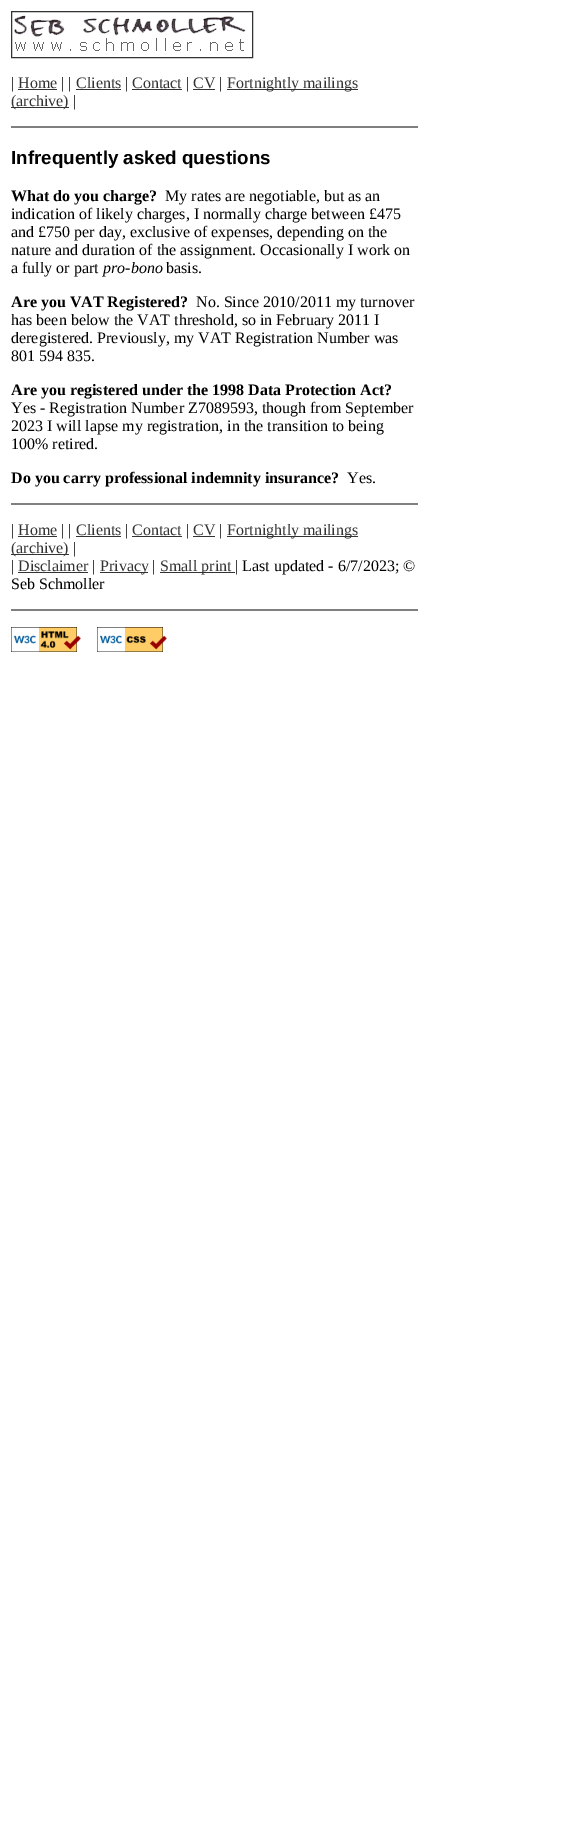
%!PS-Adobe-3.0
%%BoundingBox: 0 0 566 1833
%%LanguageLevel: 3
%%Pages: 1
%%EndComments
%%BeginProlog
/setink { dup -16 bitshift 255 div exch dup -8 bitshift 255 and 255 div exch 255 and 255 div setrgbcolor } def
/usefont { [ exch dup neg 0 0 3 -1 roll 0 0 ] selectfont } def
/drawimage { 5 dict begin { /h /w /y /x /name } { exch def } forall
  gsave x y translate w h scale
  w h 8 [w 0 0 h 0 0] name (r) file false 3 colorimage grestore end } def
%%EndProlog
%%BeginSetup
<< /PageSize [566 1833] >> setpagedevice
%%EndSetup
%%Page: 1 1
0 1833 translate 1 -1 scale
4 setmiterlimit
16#FFFFFF setink
0 0 566 1833 rectfill
16#333333 setink
11.5 11.5 241 46 rectstroke
(img1.raw) 14 15 232 36 drawimage
/LiberationSerif-Regular 16 usefont
16#000000 setink
11 88 moveto (|) show
16#333333 setink
18 88 moveto (Home) show
18 89 39 1 rectfill
16#000000 setink
61 88 moveto (| |) show
16#333333 setink
76 88 moveto (Clients) show
76 89 45 1 rectfill
16#000000 setink
125 88 moveto (|) show
16#333333 setink
132 88 moveto (Contact) show
132 89 50 1 rectfill
16#000000 setink
186 88 moveto (|) show
16#333333 setink
193 88 moveto (CV) show
193 89 22 1 rectfill
16#000000 setink
219 88 moveto (|) show
16#333333 setink
227 89 131 1 rectfill
227 88 moveto (Fortnightly mailings) show
11 107 58 1 rectfill
11 106 moveto (\(archive\)) show
16#000000 setink
73 106 moveto (|) show
16#808080 setink
11 126 407 2 rectfill
/LiberationSans-Bold 18.75 usefont
16#000000 setink
11 164 moveto (Infrequently asked questions) show
/LiberationSerif-Bold 16 usefont
11 201 moveto (What do you charge?) show
/LiberationSerif-Regular 16 usefont
[
    [(My rates are negotiable, but as an) 165 201]
    [(indication of likely charges, I normally charge between £475) 11 219]
    [(and £750 per day, exclusive of expenses, depending on the) 11 237]
    [(nature and duration of the assignment. Occasionally I work on) 11 255]
    [(a fully or part) 11 273]
] { aload pop moveto show } forall
/LiberationSerif-Italic 16 usefont
103 273 moveto (pro-bono) show
/LiberationSerif-Regular 16 usefont
166 273 moveto (basis.) show
/LiberationSerif-Bold 16 usefont
11 307 moveto (Are you VAT Registered?) show
/LiberationSerif-Regular 16 usefont
[
    [(No. Since 2010/2011 my turnover) 196 307]
    [(has been below the VAT threshold, so in February 2011 I) 11 325]
    [(deregistered. Previously, my VAT Registration Number was) 11 343]
    [(801 594 835.) 11 361]
] { aload pop moveto show } forall
/LiberationSerif-Bold 16 usefont
11 395 moveto (Are you registered under the 1998 Data Protection Act?) show
/LiberationSerif-Regular 16 usefont
[
    [(Yes - Registration Number Z7089593, though from September) 11 413]
    [(2023 I will lapse my registration, in the transition to being) 11 431]
    [(100% retired.) 11 449]
] { aload pop moveto show } forall
/LiberationSerif-Bold 16 usefont
11 483 moveto (Do you carry professional indemnity insurance?) show
/LiberationSerif-Regular 16 usefont
347 483 moveto (Yes.) show
16#808080 setink
11 503 407 2 rectfill
16#000000 setink
11 535 moveto (|) show
16#333333 setink
18 535 moveto (Home) show
18 536 39 1 rectfill
16#000000 setink
61 535 moveto (| |) show
16#333333 setink
76 535 moveto (Clients) show
76 536 45 1 rectfill
16#000000 setink
125 535 moveto (|) show
16#333333 setink
132 535 moveto (Contact) show
132 536 50 1 rectfill
16#000000 setink
186 535 moveto (|) show
16#333333 setink
193 535 moveto (CV) show
193 536 22 1 rectfill
16#000000 setink
219 535 moveto (|) show
16#333333 setink
227 536 131 1 rectfill
227 535 moveto (Fortnightly mailings) show
11 554 58 1 rectfill
11 553 moveto (\(archive\)) show
16#000000 setink
73 553 moveto (|) show
11 571 moveto (|) show
16#333333 setink
18 571 moveto (Disclaimer) show
18 572 70 1 rectfill
16#000000 setink
92 571 moveto (|) show
16#333333 setink
100 572 48 1 rectfill
100 571 moveto (Privacy) show
16#000000 setink
152 571 moveto (|) show
16#333333 setink
160 572 75 1 rectfill
160 571 moveto (Small print) show
16#000000 setink
235 571 moveto (| Last updated - 6/7/2023; ©) show
11 589 moveto (Seb Schmoller) show
16#808080 setink
11 609 407 2 rectfill
(img2.raw) 11 627 70 25 drawimage
(img3.raw) 97 627 70 25 drawimage
showpage
%%EOF
